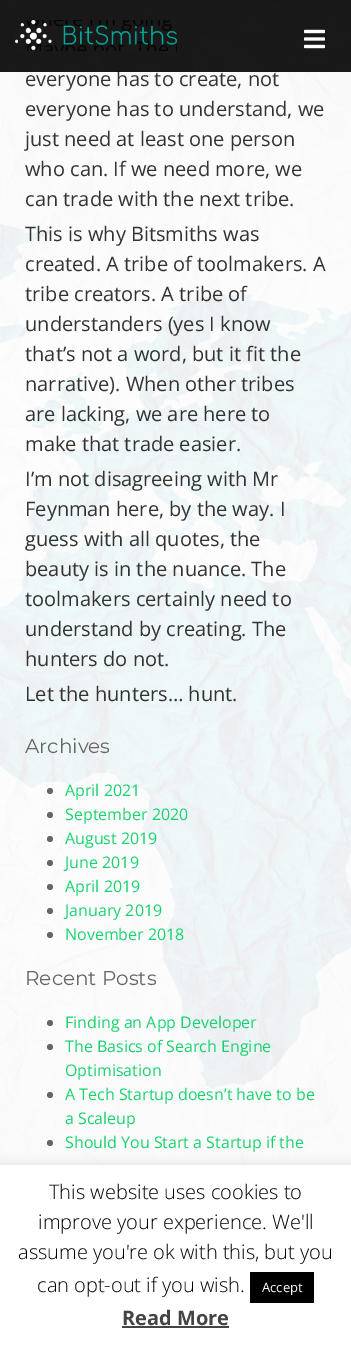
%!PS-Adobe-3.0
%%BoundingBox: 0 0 351 1345
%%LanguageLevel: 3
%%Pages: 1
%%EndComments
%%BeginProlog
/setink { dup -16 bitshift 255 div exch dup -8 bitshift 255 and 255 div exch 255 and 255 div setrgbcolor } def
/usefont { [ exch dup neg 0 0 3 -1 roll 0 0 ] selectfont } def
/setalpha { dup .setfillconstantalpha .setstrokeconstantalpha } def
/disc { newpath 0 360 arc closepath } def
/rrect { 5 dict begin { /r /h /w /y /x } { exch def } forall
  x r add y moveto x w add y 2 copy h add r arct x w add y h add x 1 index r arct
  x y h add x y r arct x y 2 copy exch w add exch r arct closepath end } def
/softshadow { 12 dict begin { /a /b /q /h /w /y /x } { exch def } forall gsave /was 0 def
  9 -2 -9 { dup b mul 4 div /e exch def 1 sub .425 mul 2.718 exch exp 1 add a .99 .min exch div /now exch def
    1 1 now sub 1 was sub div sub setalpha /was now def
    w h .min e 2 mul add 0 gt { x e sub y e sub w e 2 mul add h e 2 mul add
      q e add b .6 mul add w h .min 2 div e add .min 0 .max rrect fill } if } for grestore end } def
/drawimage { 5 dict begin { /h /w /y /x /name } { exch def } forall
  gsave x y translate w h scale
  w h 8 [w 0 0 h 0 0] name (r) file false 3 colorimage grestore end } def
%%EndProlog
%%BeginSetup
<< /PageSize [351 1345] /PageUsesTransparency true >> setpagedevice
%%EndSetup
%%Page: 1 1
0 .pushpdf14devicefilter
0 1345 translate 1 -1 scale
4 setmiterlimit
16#FFFFFF setink
0 0 351 1345 rectfill
(img3.raw) 0 0 351 1165 drawimage
/OpenSans-Regular 20 usefont
16#333333 setink
25 86 moveto (everyone has to create, not) show
0.9 setalpha
16#000000 setink
0 0 351 72 rectfill
1 setalpha
(img1.raw) 15 20 162 31 drawimage
(img2.raw) 304 29 21 20 drawimage
16#333333 setink
[
    [(everyone has to understand, we) 25 116]
    [(just need at least one person) 25 146]
    [(who can. If we need more, we) 25 176]
    [(can trade with the next tribe.) 25 206]
    [(This is why Bitsmiths was) 25 241]
    [(created. A tribe of toolmakers. A) 25 271]
    [(tribe creators. A tribe of) 25 301]
    [(understanders \(yes I know) 25 331]
    [(that’s not a word, but it fit the) 25 361]
    [(narrative\). When other tribes) 25 391]
    [(are lacking, we are here to) 25 421]
    [(make that trade easier.) 25 451]
    [(I’m not disagreeing with Mr) 25 486]
    [(Feynman here, by the way. I) 25 516]
    [(guess with all quotes, the) 25 546]
    [(beauty is in the nuance. The) 25 576]
    [(toolmakers certainly need to) 25 606]
    [(understand by creating. The) 25 636]
    [(hunters do not.) 25 666]
    [(Let the hunters… hunt.) 25 701]
] { aload pop moveto show } forall
/Montserrat-Regular 20 usefont
16#666666 setink
25 753 moveto (Archives) show
50 791 3 disc fill
/OpenSans-Regular 16 usefont
16#18D26E setink
65 796 moveto (April 2021) show
16#666666 setink
50 815 3 disc fill
16#18D26E setink
65 820 moveto (September 2020) show
16#666666 setink
50 839 3 disc fill
16#18D26E setink
65 844 moveto (August 2019) show
16#666666 setink
50 863 3 disc fill
16#18D26E setink
65 868 moveto (June 2019) show
16#666666 setink
50 887 3 disc fill
16#18D26E setink
65 892 moveto (April 2019) show
16#666666 setink
50 911 3 disc fill
16#18D26E setink
65 916 moveto (January 2019) show
16#666666 setink
50 935 3 disc fill
16#18D26E setink
65 940 moveto (November 2018) show
/Montserrat-Regular 20 usefont
16#666666 setink
25 985 moveto (Recent Posts) show
50 1023 3 disc fill
/OpenSans-Regular 16 usefont
16#18D26E setink
65 1028 moveto (Finding an App Developer) show
16#666666 setink
50 1047 3 disc fill
16#18D26E setink
65 1052 moveto (The Basics of Search Engine) show
65 1076 moveto (Optimisation) show
16#666666 setink
50 1095 3 disc fill
16#18D26E setink
65 1100 moveto (A Tech Startup doesn’t have to be) show
65 1124 moveto (a Scaleup) show
16#666666 setink
50 1143 3 disc fill
16#18D26E setink
65 1148 moveto (Should You Start a Startup if the) show
16#ACABAB setink
0 1164 351 180 0 5 0.3 softshadow
16#FFFFFF setink
0 1165 351 180 rectfill
/OpenSans-Light 20 usefont
16#000000 setink
[
    [(This website uses cookies to) 49 1199]
    [(improve your experience. We'll) 38 1229]
    [(assume you're ok with this, but you) 18 1259]
    [(can opt-out if you wish.) 37 1292]
] { aload pop moveto show } forall
250 1272 64 31 rectfill
/OpenSans-Regular 13 usefont
16#FFFFFF setink
262 1292 moveto (Accept) show
/OpenSans-Bold 20 usefont
16#444444 setink
122 1325 moveto (Read More) show
122 1326 107 2 rectfill
.poppdf14devicefilter showpage
%%EOF
